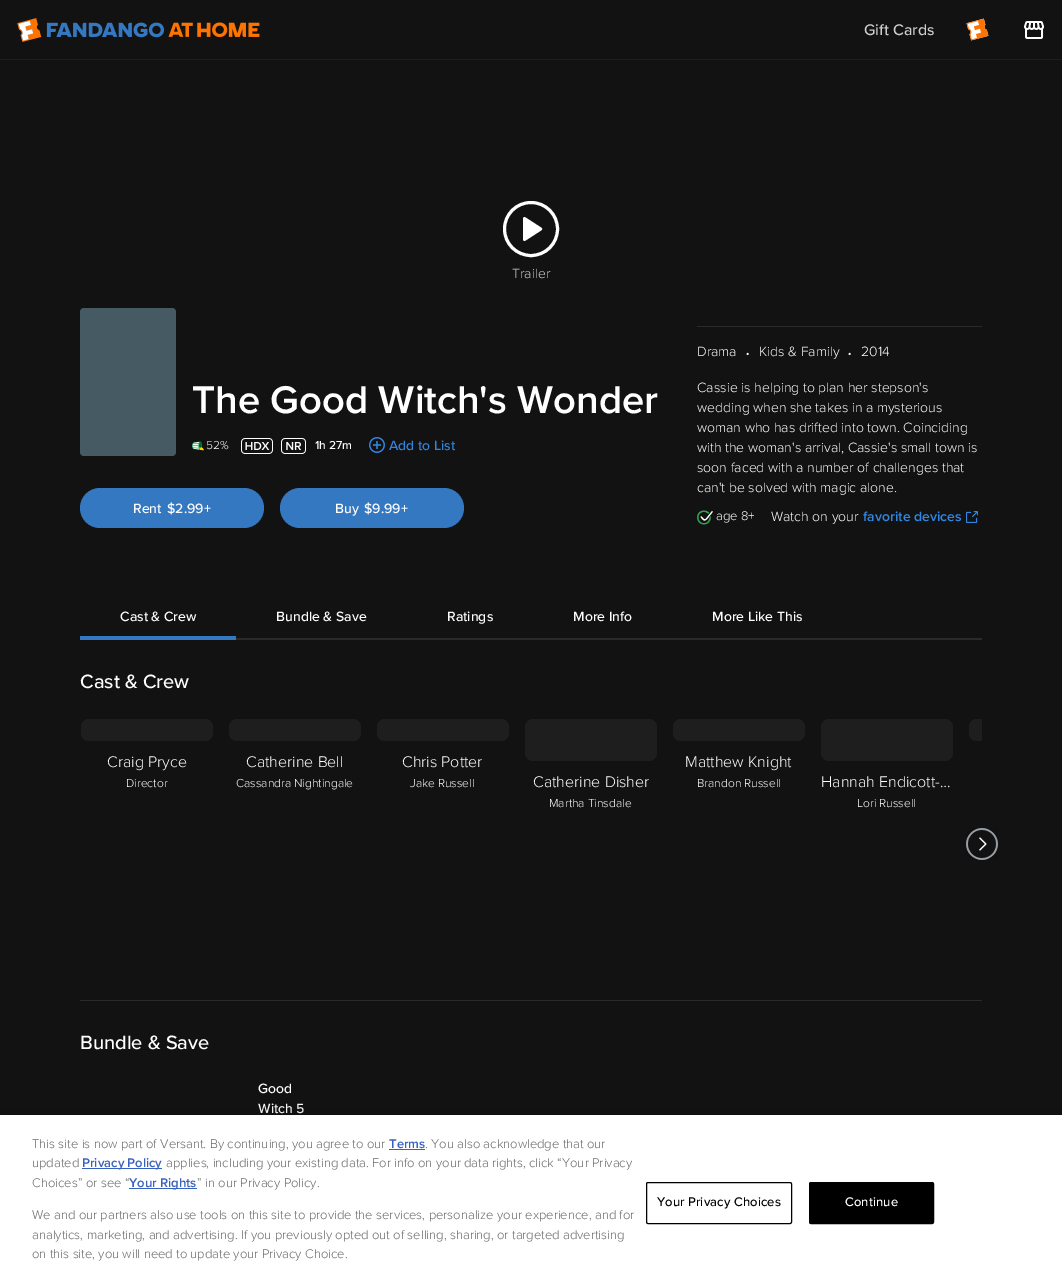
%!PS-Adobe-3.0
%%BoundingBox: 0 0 1062 1288
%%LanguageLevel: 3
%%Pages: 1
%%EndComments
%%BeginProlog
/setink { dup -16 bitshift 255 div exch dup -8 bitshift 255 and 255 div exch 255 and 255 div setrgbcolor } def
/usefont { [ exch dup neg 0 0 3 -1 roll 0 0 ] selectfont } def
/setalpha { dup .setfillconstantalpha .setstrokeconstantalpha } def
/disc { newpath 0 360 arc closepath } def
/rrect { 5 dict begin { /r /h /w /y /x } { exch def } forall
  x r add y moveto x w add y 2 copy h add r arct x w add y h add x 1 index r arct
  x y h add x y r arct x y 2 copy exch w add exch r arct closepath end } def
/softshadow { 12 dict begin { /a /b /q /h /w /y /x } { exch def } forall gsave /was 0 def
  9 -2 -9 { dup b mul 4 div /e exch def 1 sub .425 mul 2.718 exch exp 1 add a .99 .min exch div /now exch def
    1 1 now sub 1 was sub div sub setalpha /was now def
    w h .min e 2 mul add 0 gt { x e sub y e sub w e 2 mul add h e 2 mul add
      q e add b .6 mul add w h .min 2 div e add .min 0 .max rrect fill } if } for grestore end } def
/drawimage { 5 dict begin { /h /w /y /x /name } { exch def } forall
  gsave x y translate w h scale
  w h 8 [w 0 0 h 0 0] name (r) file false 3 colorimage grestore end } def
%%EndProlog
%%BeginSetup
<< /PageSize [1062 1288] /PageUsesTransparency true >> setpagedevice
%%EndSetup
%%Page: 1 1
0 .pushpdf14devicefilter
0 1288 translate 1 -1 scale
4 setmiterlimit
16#121212 setink
0 0 1062 1288 rectfill
16#1E1E1E setink
0 59 1062 1 rectfill
(img1.raw) 17 18 243 24 drawimage
/ProximaNova-Medium 16 usefont
16#CCCFD1 setink
864 35 moveto (Gift Cards) show
(img2.raw) 966 18 23 23 drawimage
(img3.raw) 1024 21 21 18 drawimage
16#FFFFFF setink
3 setlinewidth
531 229 26.5 disc stroke
541 227.5 moveto 525.5 217.5 lineto 524.5 216.5 523 217.5 523 218.5 curveto 523 239.5 lineto 523 240.5 524.5 241.5 525.5 240.5 curveto 541 230.5 lineto 542.5 229.5 542.5 228.5 541 227.5 curveto closepath eofill
/ProximaNova-Light 14 usefont
16#CCCFD1 setink
512 278 moveto (Trailer) show
16#465A63 setink
80 308 96 148 4 rrect fill
/ProximaNova-SemiBold 40 usefont
16#FFFFFF setink
192 413 moveto (The Good Witch's Wonder) show
(img4.raw) 192 441 12 10 drawimage
/ProximaNova-Light 12 usefont
206 449 moveto (52%) show
(img5.raw) 241 438 32 16 drawimage
(img6.raw) 281 438 25 16 drawimage
/ProximaNova-Medium 12 usefont
315 449 moveto (1h 27m) show
(img7.raw) 369 437 16 16 drawimage
/ProximaNova-Medium 14 usefont
16#3185E0 setink
389 450 moveto (Add to List) show
16#2A2A2A setink
697 326 285 1 rectfill
/ProximaNova-Light 14 usefont
16#FFFFFF setink
697 356 moveto (Drama) show
/ProximaNova-Light 25 usefont
745 360 moveto (·) show
/ProximaNova-Light 14 usefont
759 356 moveto (Kids & Family) show
/ProximaNova-Light 25 usefont
847 360 moveto (·) show
/ProximaNova-Light 14 usefont
[
    [(2014) 861 356]
    [(Cassie is helping to plan her stepson's) 697 392]
    [(wedding when she takes in a mysterious) 697 412]
    [(woman who has drifted into town. Coinciding) 697 432]
    [(with the woman's arrival, Cassie's small town is) 697 452]
    [(soon faced with a number of challenges that) 697 472]
    [(can't be solved with magic alone.) 697 492]
] { aload pop moveto show } forall
(img8.raw) 697 510 16 15 drawimage
/ProximaNova-Light 13 usefont
716 520 moveto (age 8+) show
/ProximaNova-Light 14 usefont
771 521 moveto (Watch on your) show
/ProximaNova-SemiBold 14 usefont
16#3185E0 setink
863 521 moveto (favorite devices) show
(img9.raw) 966 511 12 12 drawimage
16#3478C1 setink
80 488 184 40 20 rrect fill
/ProximaNova-Medium 14 usefont
16#FFFFFF setink
133 513 moveto (Rent) show
167 513 moveto ($2.99+) show
16#3478C1 setink
280 488 184 40 20 rrect fill
16#FFFFFF setink
335 513 moveto (Buy) show
364 513 moveto ($9.99+) show
16#3478C1 setink
80 636 156 4 rectfill
16#FFFFFF setink
[
    [(Cast & Crew) 120 621]
    [(Bundle & Save) 276 621]
    [(Ratings) 447 621]
    [(More Info) 573 621]
    [(More Like This) 712 621]
] { aload pop moveto show } forall
16#2A2A2A setink
236 638 746 2 rectfill
80 1000 902 1 rectfill
/ProximaNova-Medium 20 usefont
16#FFFFFF setink
80 688 moveto (Cast & Crew) show
16#1E1E1E setink
977 719 moveto 982 719 lineto 982 741 lineto 977 741 lineto 972.5 741 969 737.5 969 733 curveto 969 727 lineto 969 722.5 972.5 719 977 719 curveto closepath fill
81 719 132 22 8 rrect fill
/ProximaNova-Light 16 usefont
16#FFFFFF setink
107 767 moveto (Craig Pryce) show
/ProximaNova-Light 12 usefont
126 787 moveto (Director) show
16#1E1E1E setink
229 719 132 22 8 rrect fill
/ProximaNova-Light 16 usefont
16#FFFFFF setink
246 767 moveto (Catherine Bell) show
/ProximaNova-Light 12 usefont
236 787 moveto (Cassandra Nightingale) show
16#1E1E1E setink
377 719 132 22 8 rrect fill
/ProximaNova-Light 16 usefont
16#FFFFFF setink
402 767 moveto (Chris Potter) show
/ProximaNova-Light 12 usefont
410 787 moveto (Jake Russell) show
16#1E1E1E setink
673 719 132 22 8 rrect fill
/ProximaNova-Light 16 usefont
16#FFFFFF setink
685 767 moveto (Matthew Knight) show
/ProximaNova-Light 12 usefont
697 787 moveto (Brandon Russell) show
16#1E1E1E setink
525 719 132 42 8 rrect fill
/ProximaNova-Light 16 usefont
16#FFFFFF setink
533 787 moveto (Catherine Disher) show
/ProximaNova-Light 12 usefont
549 807 moveto (Martha Tinsdale) show
16#1E1E1E setink
821 719 132 42 8 rrect fill
/ProximaNova-Light 16 usefont
16#FFFFFF setink
821 787 moveto (Hannah Endicott-…) show
/ProximaNova-Light 12 usefont
857 807 moveto (Lori Russell) show
(img10.raw) 966 828 32 32 drawimage
/ProximaNova-Medium 20 usefont
80 1049 moveto (Bundle & Save) show
/ProximaNova-Medium 14 usefont
258 1093 moveto (Good) show
258 1113 moveto (Witch 5) show
16#000000 setink
0 1115 1062 173 0 9 0.2 softshadow
16#FFFFFF setink
0 1115 1062 173 rectfill
/ProximaNova-Light 13 usefont
16#696969 setink
32 1148 moveto (This site is now part of Versant. By continuing, you agree to our) show
/ProximaNova-SemiBold 13 usefont
16#3860BE setink
389 1148 moveto (Terms) show
389 1149 36 1 rectfill
/ProximaNova-Light 13 usefont
16#696969 setink
425 1148 moveto (. You also acknowledge that our) show
32 1167 moveto (updated) show
16#3860BE setink
82 1168 80 1 rectfill
/ProximaNova-SemiBold 13 usefont
82 1167 moveto (Privacy Policy) show
/ProximaNova-Light 13 usefont
16#696969 setink
166 1167 moveto (applies, including your existing data. For info on your data rights, click “Your Privacy) show
32 1187 moveto (Choices” or see “) show
16#3860BE setink
129 1188 68 1 rectfill
/ProximaNova-SemiBold 13 usefont
129 1187 moveto (Your Rights) show
/ProximaNova-Light 13 usefont
16#696969 setink
[
    [(” in our Privacy Policy.) 197 1187]
    [(We and our partners also use tools on this site to provide the services, personalize your experience, and for) 32 1219]
    [(analytics, marketing, and advertising. If you previously opted out of selling, sharing, or targeted advertising) 32 1239]
    [(on this site, you will need to update your Privacy Choice.) 32 1258]
] { aload pop moveto show } forall
16#000000 setink
1 setlinewidth
646.5 1182.5 145 41 1.5 rrect stroke
/ProximaNova-Medium 13 usefont
657 1206 moveto 0.1 0 (Your Privacy Choices) ashow
809.5 1182.5 124 41 1.5 rrect gsave fill grestore
stroke
16#FFFFFF setink
845 1206 moveto 0.1 0 (Continue) ashow
.poppdf14devicefilter showpage
%%EOF
